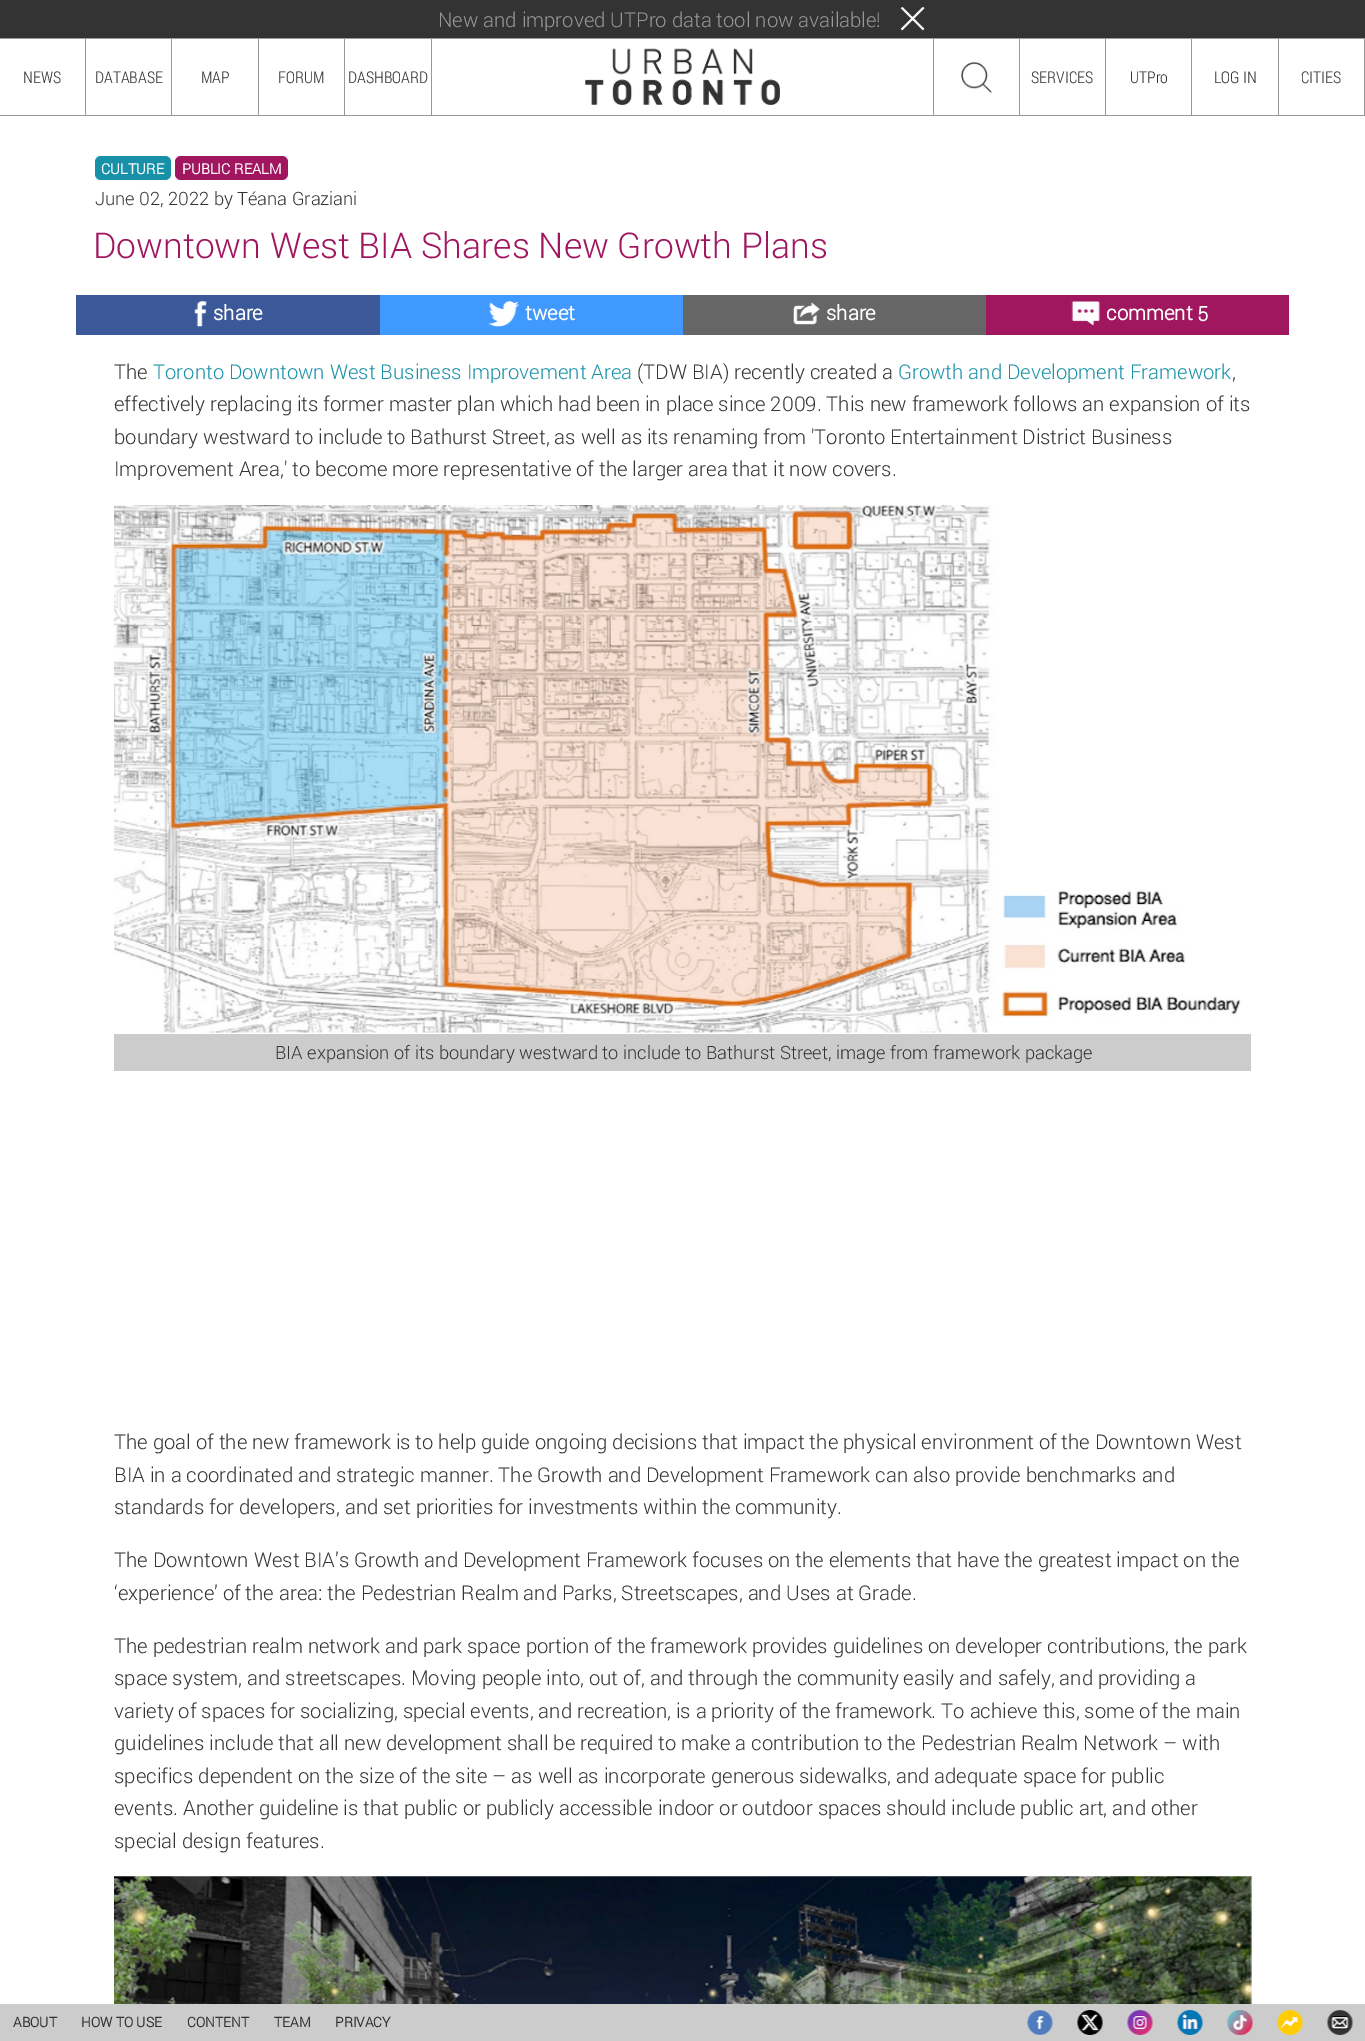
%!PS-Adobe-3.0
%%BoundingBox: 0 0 1365 2041
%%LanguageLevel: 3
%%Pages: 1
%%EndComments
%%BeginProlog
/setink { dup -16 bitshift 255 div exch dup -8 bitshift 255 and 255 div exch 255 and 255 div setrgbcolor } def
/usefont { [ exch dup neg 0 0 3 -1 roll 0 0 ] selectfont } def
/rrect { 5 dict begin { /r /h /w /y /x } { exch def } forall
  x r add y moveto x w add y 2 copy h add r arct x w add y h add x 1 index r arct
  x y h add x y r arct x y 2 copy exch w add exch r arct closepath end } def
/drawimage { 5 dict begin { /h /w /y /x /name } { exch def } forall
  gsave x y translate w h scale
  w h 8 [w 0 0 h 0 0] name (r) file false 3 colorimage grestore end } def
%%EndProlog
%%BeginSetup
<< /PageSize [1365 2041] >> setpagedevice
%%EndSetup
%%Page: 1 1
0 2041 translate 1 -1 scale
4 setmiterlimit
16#FFFFFF setink
0 0 1365 2041 rectfill
16#333333 setink
0 0 1365 38 rectfill
/Roboto-Light 20.3 usefont
16#999999 setink
438 27 moveto (New and improved UTPro data tool now available!) show
(img1.raw) 900 7 25 24 drawimage
0 38 1365 1 rectfill
0 115 1365 1 rectfill
/RobotoCondensed-Light 16.25 usefont
16#333333 setink
23 83 moveto (NEWS) show
16#999999 setink
85 38 1 78 rectfill
16#333333 setink
95 83 moveto (DATABASE) show
16#999999 setink
171 38 1 78 rectfill
16#333333 setink
201 83 moveto (MAP) show
16#999999 setink
258 38 1 78 rectfill
16#333333 setink
278 83 moveto (FORUM) show
16#999999 setink
431 38 1 78 rectfill
344 38 1 78 rectfill
16#333333 setink
348 83 moveto (DASHBOARD) show
(img2.raw) 585 48 195 57 drawimage
16#999999 setink
933 38 1 78 rectfill
(img3.raw) 961 62 31 31 drawimage
1019 38 1 78 rectfill
16#333333 setink
1031 83 moveto (SERVICES) show
16#999999 setink
1105 38 1 78 rectfill
16#333333 setink
1130 83 moveto (UTPro) show
16#999999 setink
1191 38 1 78 rectfill
16#333333 setink
1214 83 moveto (LOG IN) show
16#999999 setink
1364 38 1 78 rectfill
1278 38 1 78 rectfill
16#333333 setink
1301 83 moveto (CITIES) show
16#1790A8 setink
95 156 76 24 6 rrect fill
/Roboto-Bold 14.5 usefont
16#FFFFFF setink
101 174 moveto (CULTURE) show
16#A0165F setink
175 156 113 24 6 rrect fill
16#FFFFFF setink
182 174 moveto (PUBLIC REALM) show
/Roboto-Light 18.3 usefont
16#333333 setink
95 205 moveto (June 02, 2022 by Téana Graziani) show
/Roboto-Light 35.55 usefont
16#A0165F setink
93 258 moveto (Downtown West BIA Shares New Growth Plans) show
16#3B5998 setink
76 295 304 40 rectfill
(img4.raw) 194 301 13 26 drawimage
/Roboto-Bold 20.3 usefont
16#FFFFFF setink
213 320 moveto (share) show
16#4099FF setink
380 295 303 40 rectfill
(img5.raw) 488 301 31 26 drawimage
16#FFFFFF setink
525 320 moveto (tweet) show
16#666666 setink
683 295 303 40 rectfill
(img6.raw) 793 302 27 23 drawimage
16#FFFFFF setink
826 320 moveto (share) show
16#A0165F setink
986 295 303 40 rectfill
(img7.raw) 1071 301 29 25 drawimage
16#FFFFFF setink
1106 320 moveto (comment) show
1197 321 moveto (5) show
/Roboto-Light 20.3 usefont
16#333333 setink
114 379 moveto (The) show
16#1790A8 setink
153 379 moveto (Toronto Downtown West Business Improvement Area) show
16#333333 setink
637 379 moveto (\(TDW BIA\) recently created a) show
16#1790A8 setink
898 379 moveto (Growth and Development Framework) show
16#333333 setink
[
    [(,) 1232 379]
    [(effectively replacing its former master plan which had been in place since 2009. This new framework follows an expansion of its) 114 411]
    [(boundary westward to include to Bathurst Street, as well as its renaming from 'Toronto Entertainment District Business) 114 444]
    [(Improvement Area,' to become more representative of the larger area that it now covers.) 114 476]
] { aload pop moveto show } forall
(img8.raw) 114 505 1127 528 drawimage
16#CCCCCC setink
114 1034 1137 37 rectfill
/Roboto-Light 18.3 usefont
16#333333 setink
275 1059 moveto (BIA expansion of its boundary westward to include to Bathurst Street, image from framework package) show
/Roboto-Light 20.3 usefont
[
    [(The goal of the new framework is to help guide ongoing decisions that impact the physical environment of the Downtown West) 114 1449]
    [(BIA in a coordinated and strategic manner. The Growth and Development Framework can also provide benchmarks and) 114 1482]
    [(standards for developers, and set priorities for investments within the community.) 114 1514]
    [(The Downtown West BIA’s Growth and Development Framework focuses on the elements that have the greatest impact on the) 114 1567]
    [(‘experience’ of the area: the Pedestrian Realm and Parks, Streetscapes, and Uses at Grade.) 114 1600]
    [(The pedestrian realm network and park space portion of the framework provides guidelines on developer contributions, the park) 114 1653]
    [(space system, and streetscapes. Moving people into, out of, and through the community easily and safely, and providing a) 114 1685]
    [(variety of spaces for socializing, special events, and recreation, is a priority of the framework. To achieve this, some of the main) 114 1718]
    [(guidelines include that all new development shall be required to make a contribution to the Pedestrian Realm Network – with) 114 1750]
    [(specifics dependent on the size of the site – as well as incorporate generous sidewalks, and adequate space for public) 114 1783]
    [(events. Another guideline is that public or publicly accessible indoor or outdoor spaces should include public art, and other) 114 1815]
    [(special design features.) 114 1848]
] { aload pop moveto show } forall
(img9.raw) 114 1876 1138 128 drawimage
16#CCCCCC setink
0 2004 1365 37 rectfill
/Roboto-Bold 13.75 usefont
16#333333 setink
[
    [(ABOUT) 13 2027]
    [(HOW TO USE) 81 2027]
    [(CONTENT) 187 2027]
    [(TEAM) 274 2027]
    [(PRIVACY) 335 2027]
] { aload pop moveto show } forall
(img10.raw) 1027 2010 26 25 drawimage
(img11.raw) 1077 2010 26 25 drawimage
(img12.raw) 1127 2010 26 25 drawimage
(img13.raw) 1177 2010 26 25 drawimage
(img14.raw) 1227 2010 26 25 drawimage
(img15.raw) 1277 2010 26 25 drawimage
(img16.raw) 1327 2010 26 25 drawimage
showpage
%%EOF
